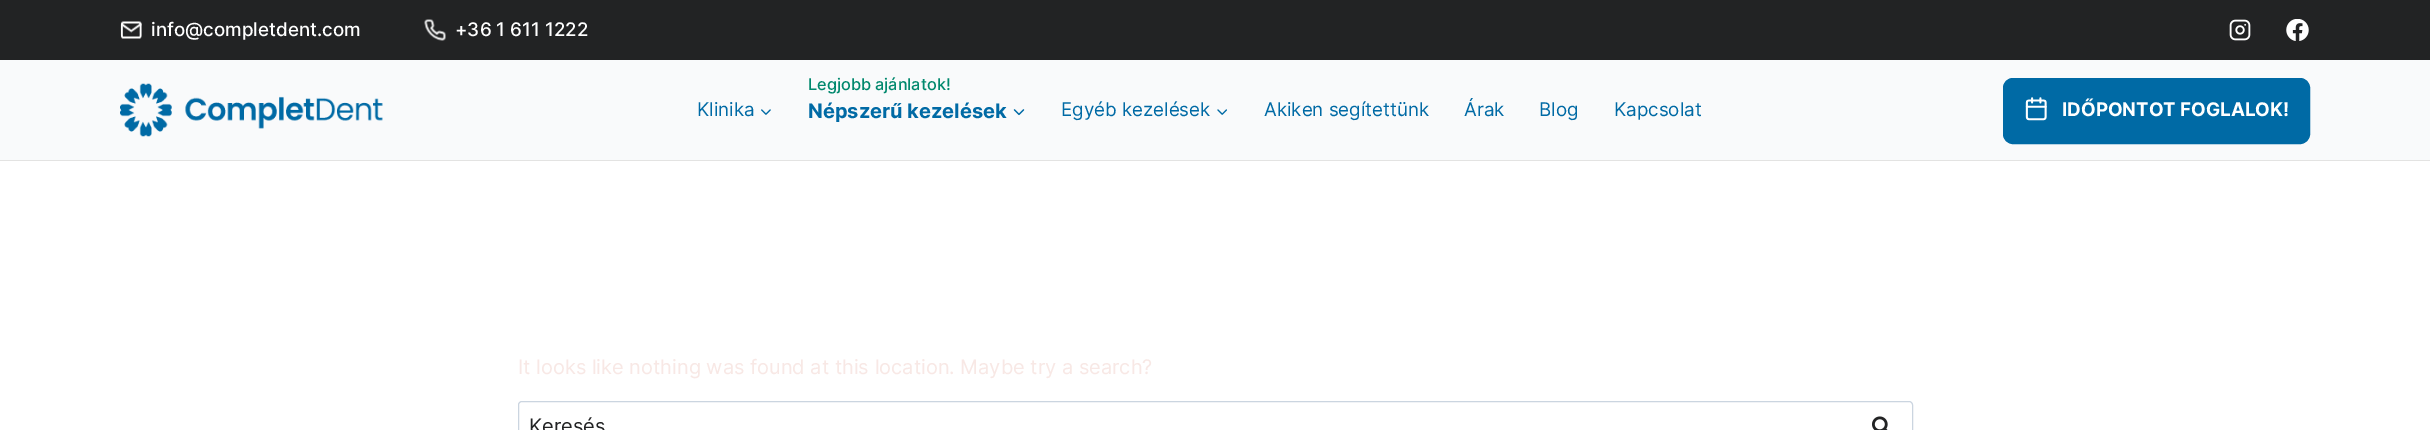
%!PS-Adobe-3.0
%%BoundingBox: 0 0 2430 430
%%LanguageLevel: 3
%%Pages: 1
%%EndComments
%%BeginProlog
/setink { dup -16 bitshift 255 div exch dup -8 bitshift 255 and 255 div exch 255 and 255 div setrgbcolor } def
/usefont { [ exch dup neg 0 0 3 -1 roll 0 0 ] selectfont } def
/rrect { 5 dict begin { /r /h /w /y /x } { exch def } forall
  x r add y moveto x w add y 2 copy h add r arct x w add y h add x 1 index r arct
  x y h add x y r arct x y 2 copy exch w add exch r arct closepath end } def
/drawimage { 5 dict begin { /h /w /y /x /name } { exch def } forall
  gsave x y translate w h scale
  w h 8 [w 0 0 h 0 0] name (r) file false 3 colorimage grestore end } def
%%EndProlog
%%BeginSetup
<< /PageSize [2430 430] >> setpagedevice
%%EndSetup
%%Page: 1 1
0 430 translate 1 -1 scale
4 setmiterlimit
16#FFFFFF setink
0 0 2430 430 rectfill
16#222324 setink
0 0 2430 60 rectfill
(img1.raw) 120 21 22 18 drawimage
/Inter-Medium 18.75 usefont
16#FFFFFF setink
151 36 moveto (info@completdent.com) show
(img2.raw) 424 19 22 22 drawimage
455 36 moveto (+36 1 611 1222) show
(img3.raw) 2229 19 22 22 drawimage
(img4.raw) 2286 19 23 22 drawimage
16#F9FAFB setink
0 60 2430 100 rectfill
16#E3E3E2 setink
0 160 2430 1 rectfill
(img5.raw) 120 83 263 54 drawimage
/Inter-Regular 18.75 usefont
16#006AA5 setink
697 116 moveto (Klinika) show
(img6.raw) 761 109 10 6 drawimage
/Inter-Medium 16.25 usefont
16#00886D setink
808 90 moveto (Legjobb ajánlatok!) show
/Inter-Bold 20 usefont
16#006AA5 setink
808 118 moveto (Népszerű kezelések) show
(img7.raw) 1013 109 12 7 drawimage
/Inter-Regular 18.75 usefont
1061 116 moveto (Egyéb kezelések) show
(img8.raw) 1217 109 10 6 drawimage
[
    [(Akiken segítettünk) 1264 116]
    [(Árak) 1464 116]
    [(Blog) 1539 116]
    [(Kapcsolat) 1614 116]
] { aload pop moveto show } forall
2003.5 78.5 306 65 9.5 rrect gsave fill grestore
stroke
(img9.raw) 2025 97 22 24 drawimage
/Inter-Bold 18.75 usefont
16#FFFFFF setink
2062 116 moveto (IDŐPONTOT FOGLALOK!) show
/Inter-Regular 20 usefont
16#F8E8E5 setink
518 374 moveto (It looks like nothing was found at this location. Maybe try a search?) show
16#CBD5E0 setink
518.5 401.5 1394 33 3.5 rrect stroke
16#222324 setink
529 433 moveto (Keresés) show
(img10.raw) 1872 416 16 14 drawimage
showpage
%%EOF
